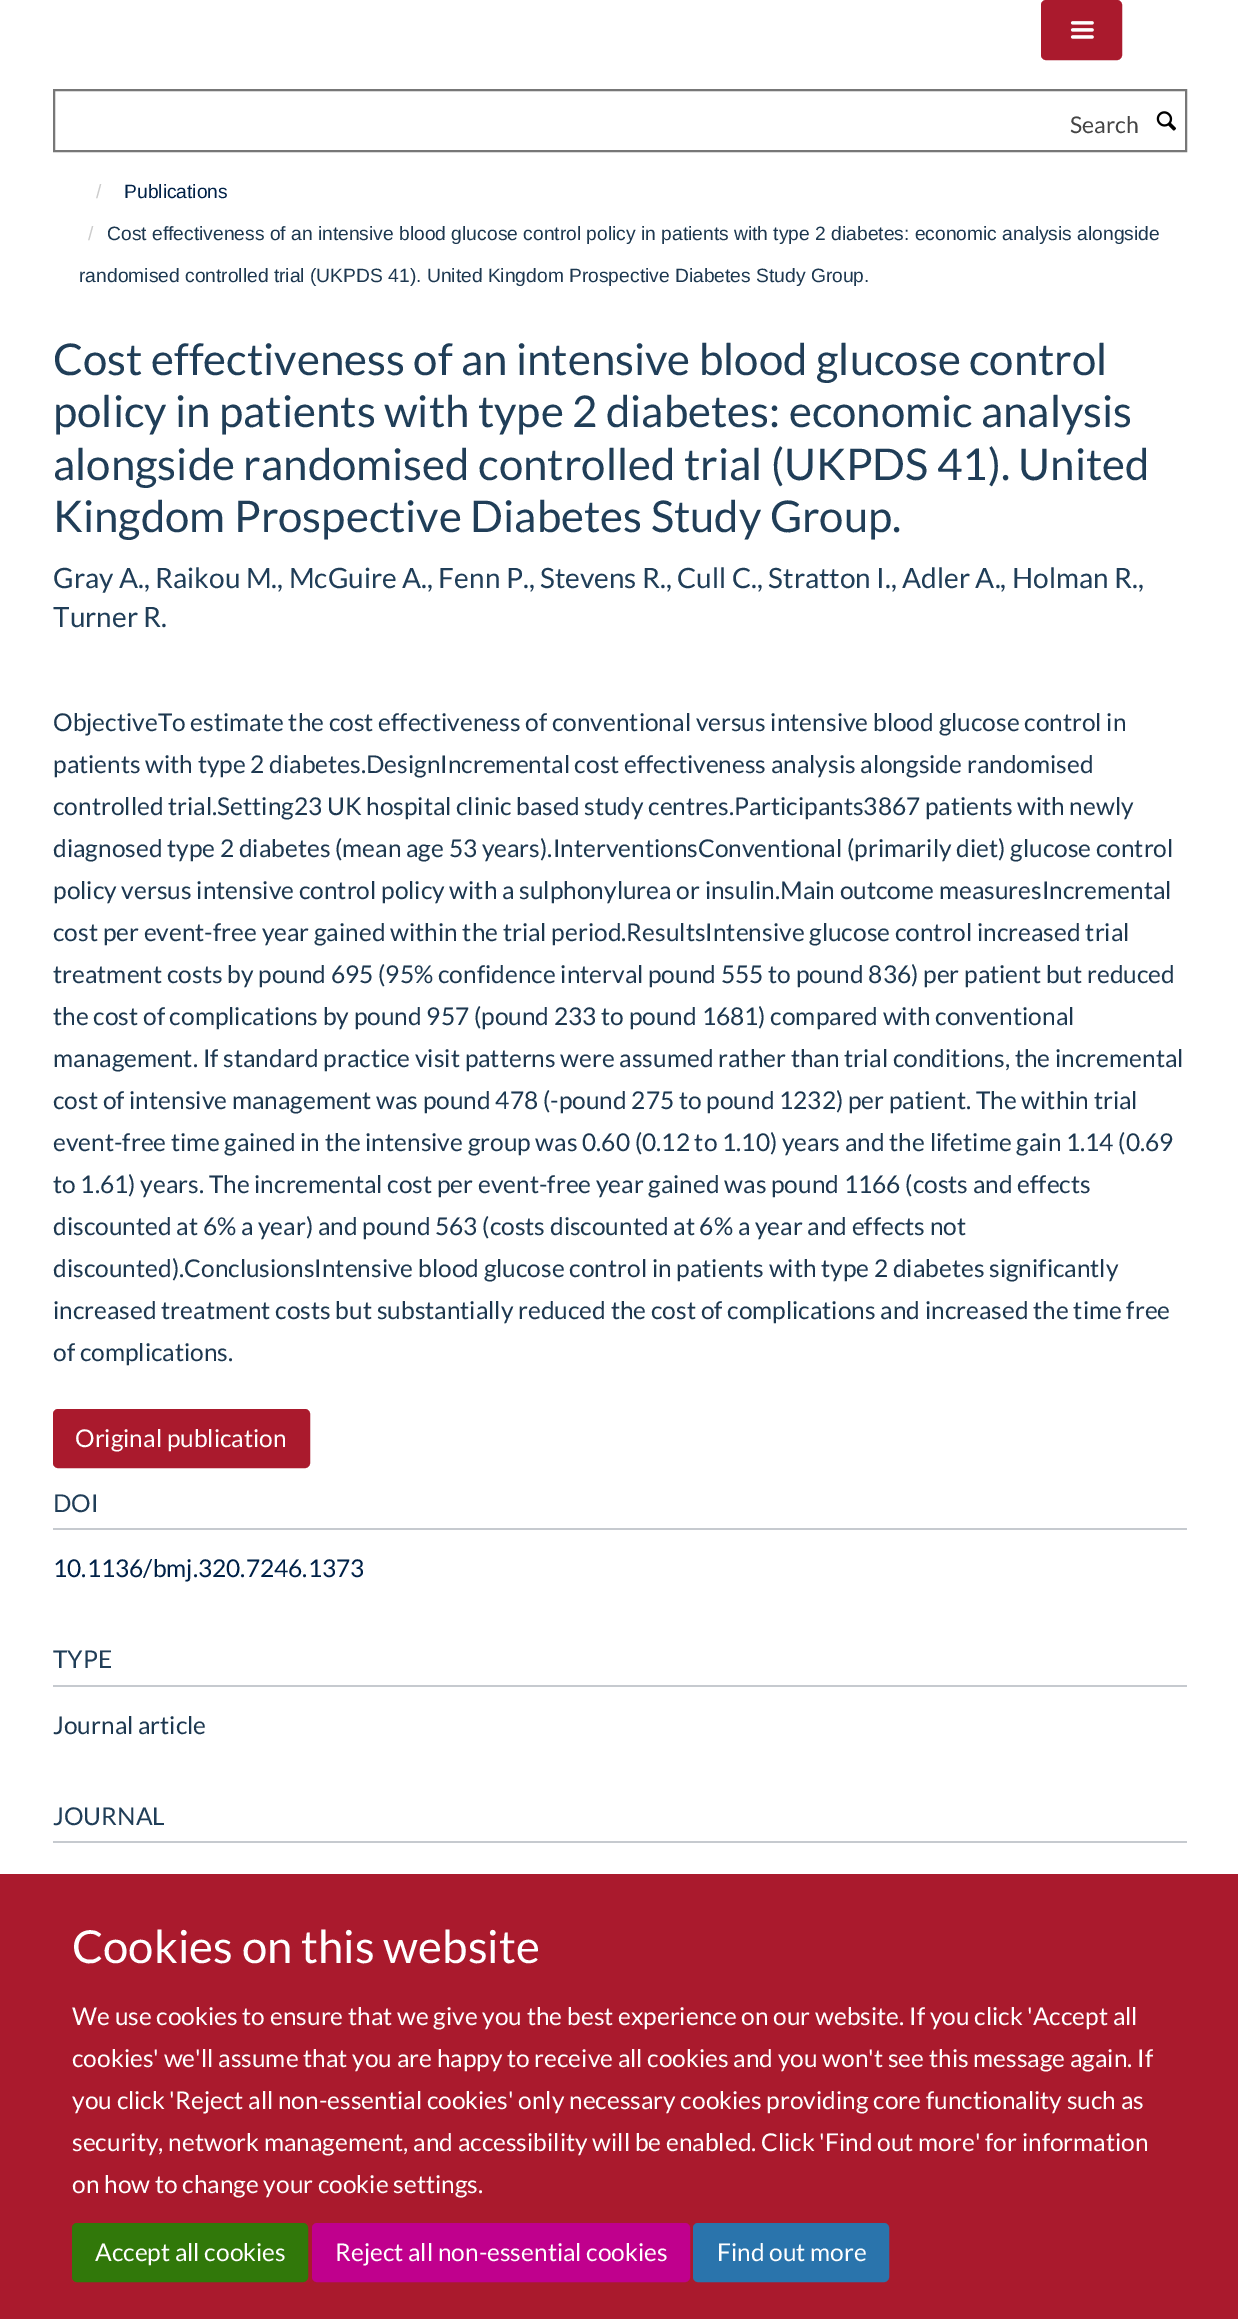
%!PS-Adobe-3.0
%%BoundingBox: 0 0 1238 2319
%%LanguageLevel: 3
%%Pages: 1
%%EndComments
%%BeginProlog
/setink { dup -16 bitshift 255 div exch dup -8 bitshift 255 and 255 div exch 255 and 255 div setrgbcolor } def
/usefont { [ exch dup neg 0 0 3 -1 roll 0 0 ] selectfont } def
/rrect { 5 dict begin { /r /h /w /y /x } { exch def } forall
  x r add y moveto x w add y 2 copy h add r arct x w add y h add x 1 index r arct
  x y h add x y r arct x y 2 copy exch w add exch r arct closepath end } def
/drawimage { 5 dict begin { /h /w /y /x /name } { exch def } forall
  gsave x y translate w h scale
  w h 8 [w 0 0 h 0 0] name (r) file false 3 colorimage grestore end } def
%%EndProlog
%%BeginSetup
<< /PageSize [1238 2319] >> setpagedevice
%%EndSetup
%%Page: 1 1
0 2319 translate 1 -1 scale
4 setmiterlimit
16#FFFFFF setink
0 0 1238 2319 rectfill
16#AA1A2D setink
1042 1 79 58 4 rrect gsave fill grestore
2 setlinewidth
stroke
(img1.raw) 1070 21 24 18 drawimage
16#777777 setink
54 90 1132 61 rectstroke
/Lato-Regular 23 usefont
16#444444 setink
1070 133 moveto (Search) show
(img2.raw) 1156 111 20 20 drawimage
/LiberationSans-Regular 19.25 usefont
16#CCCCCC setink
96 198 moveto (/) show
16#002147 setink
124 198 moveto (Publications) show
16#CCCCCC setink
88 240 moveto (/) show
16#1D3850 setink
107 240 moveto (Cost effectiveness of an intensive blood glucose control policy in patients with type 2 diabetes: economic analysis alongside) show
79 282 moveto (randomised controlled trial \(UKPDS 41\). United Kingdom Prospective Diabetes Study Group.) show
/Lato-Regular 43.75 usefont
16#203E58 setink
[
    [(Cost effectiveness of an intensive blood glucose control) 53 375]
    [(policy in patients with type 2 diabetes: economic analysis) 53 427]
    [(alongside randomised controlled trial \(UKPDS 41\). United) 53 480]
    [(Kingdom Prospective Diabetes Study Group.) 53 532]
] { aload pop moveto show } forall
/Lato-Regular 28 usefont
53 588 moveto (Gray A., Raikou M., McGuire A., Fenn P., Stevens R., Cull C., Stratton I., Adler A., Holman R.,) show
53 627 moveto (Turner R.) show
/Lato-Regular 24.5 usefont
16#1D3850 setink
53 731 moveto (ObjectiveTo estimate the cost effectiveness of conventional versus intensive blood glucose control in) show
53 773 moveto -0.1 0 32 (patients with type 2 diabetes.DesignIncremental cost effectiveness analysis alongside randomised) widthshow
53 815 moveto -0.1 0 32 (controlled trial.Setting23 UK hospital clinic based study centres.Participants3867 patients with newly) widthshow
[
    [(diagnosed type 2 diabetes \(mean age 53 years\).InterventionsConventional \(primarily diet\) glucose control) 53 857]
    [(policy versus intensive control policy with a sulphonylurea or insulin.Main outcome measuresIncremental) 53 899]
    [(cost per event-free year gained within the trial period.ResultsIntensive glucose control increased trial) 53 941]
    [(treatment costs by pound 695 \(95% confidence interval pound 555 to pound 836\) per patient but reduced) 53 983]
    [(the cost of complications by pound 957 \(pound 233 to pound 1681\) compared with conventional) 53 1025]
    [(management. If standard practice visit patterns were assumed rather than trial conditions, the incremental) 53 1067]
    [(cost of intensive management was pound 478 \(-pound 275 to pound 1232\) per patient. The within trial) 53 1109]
    [(event-free time gained in the intensive group was 0.60 \(0.12 to 1.10\) years and the lifetime gain 1.14 \(0.69) 53 1151]
    [(to 1.61\) years. The incremental cost per event-free year gained was pound 1166 \(costs and effects) 53 1193]
    [(discounted at 6% a year\) and pound 563 \(costs discounted at 6% a year and effects not) 53 1235]
    [(discounted\).ConclusionsIntensive blood glucose control in patients with type 2 diabetes significantly) 53 1277]
    [(increased treatment costs but substantially reduced the cost of complications and increased the time free) 53 1319]
    [(of complications.) 53 1361]
] { aload pop moveto show } forall
16#AA1A2D setink
54 1410 255 57 4 rrect gsave fill grestore
stroke
16#FFFFFF setink
75 1447 moveto (Original publication) show
16#C6CACF setink
53 1528 1134 2 rectfill
16#203E58 setink
53 1512 moveto (DOI) show
16#002147 setink
53 1577 moveto (10.1136/bmj.320.7246.1373) show
16#C6CACF setink
53 1685 1134 2 rectfill
16#203E58 setink
53 1668 moveto (TYPE) show
16#1D3850 setink
53 1734 moveto (Journal article) show
16#C6CACF setink
53 1841 1134 2 rectfill
16#203E58 setink
53 1825 moveto (JOURNAL) show
16#AA1A2D setink
0 1874 1238 445 rectfill
/Lato-Regular 45.5 usefont
16#FFFFFF setink
72 1963 moveto (Cookies on this website) show
/Lato-Regular 24.5 usefont
[
    [(We use cookies to ensure that we give you the best experience on our website. If you click 'Accept all) 72 2025]
    [(cookies' we'll assume that you are happy to receive all cookies and you won't see this message again. If) 72 2067]
    [(you click 'Reject all non-essential cookies' only necessary cookies providing core functionality such as) 72 2109]
    [(security, network management, and accessibility will be enabled. Click 'Find out more' for information) 72 2151]
    [(on how to change your cookie settings.) 72 2193]
] { aload pop moveto show } forall
16#31780A setink
73 2224 234 57 4 rrect gsave fill grestore
stroke
16#FFFFFF setink
95 2261 moveto (Accept all cookies) show
16#C0008D setink
313 2224 376 57 4 rrect gsave fill grestore
stroke
16#FFFFFF setink
335 2261 moveto (Reject all non-essential cookies) show
16#2A74AC setink
694 2224 194 57 4 rrect gsave fill grestore
stroke
16#FFFFFF setink
717 2261 moveto (Find out more) show
showpage
%%EOF
